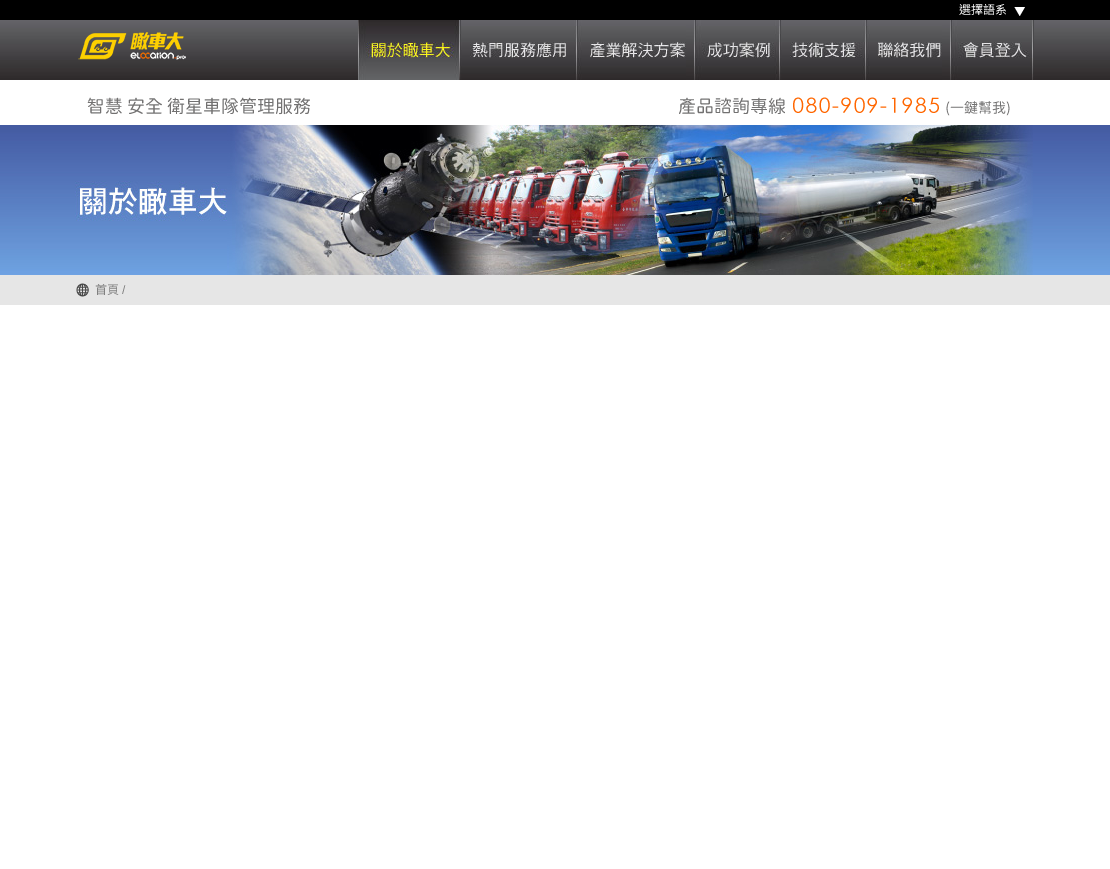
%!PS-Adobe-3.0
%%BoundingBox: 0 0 1110 869
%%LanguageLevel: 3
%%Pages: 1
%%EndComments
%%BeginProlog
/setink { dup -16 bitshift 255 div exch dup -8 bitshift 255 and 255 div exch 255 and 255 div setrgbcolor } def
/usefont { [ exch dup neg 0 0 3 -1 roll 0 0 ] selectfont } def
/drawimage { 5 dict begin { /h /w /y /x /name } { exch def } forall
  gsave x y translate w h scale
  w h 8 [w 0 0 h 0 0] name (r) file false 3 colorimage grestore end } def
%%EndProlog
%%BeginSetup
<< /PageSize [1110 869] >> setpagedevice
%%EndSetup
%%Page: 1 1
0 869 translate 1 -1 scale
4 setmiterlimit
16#FFFFFF setink
0 0 1110 869 rectfill
16#000000 setink
0 0 1110 20 rectfill
(img1.raw) 0 20 1110 60 drawimage
/NotoSansCJKTC-Regular 12 usefont
16#FFFFFF setink
959 14 moveto (選擇語系) show
(img2.raw) 1014 7 11 9 drawimage
(img3.raw) 78 32 108 28 drawimage
(img4.raw) 358 20 101 60 drawimage
(img5.raw) 459 20 117 60 drawimage
(img6.raw) 576 20 110 60 drawimage
(img7.raw) 694 20 83 60 drawimage
(img8.raw) 779 20 86 60 drawimage
(img9.raw) 865 20 77 60 drawimage
(img10.raw) 950 20 84 60 drawimage
(img11.raw) 87 97 923 19 drawimage
16#E6E6E6 setink
0 275 1110 30 rectfill
(img12.raw) 0 125 1110 150 drawimage
(img13.raw) 75 125 958 150 drawimage
(img14.raw) 76 283 13 14 drawimage
16#808080 setink
95 294 moveto (首頁) show
/LiberationSans-Regular 12 usefont
122 294 moveto (/) show
showpage
%%EOF
